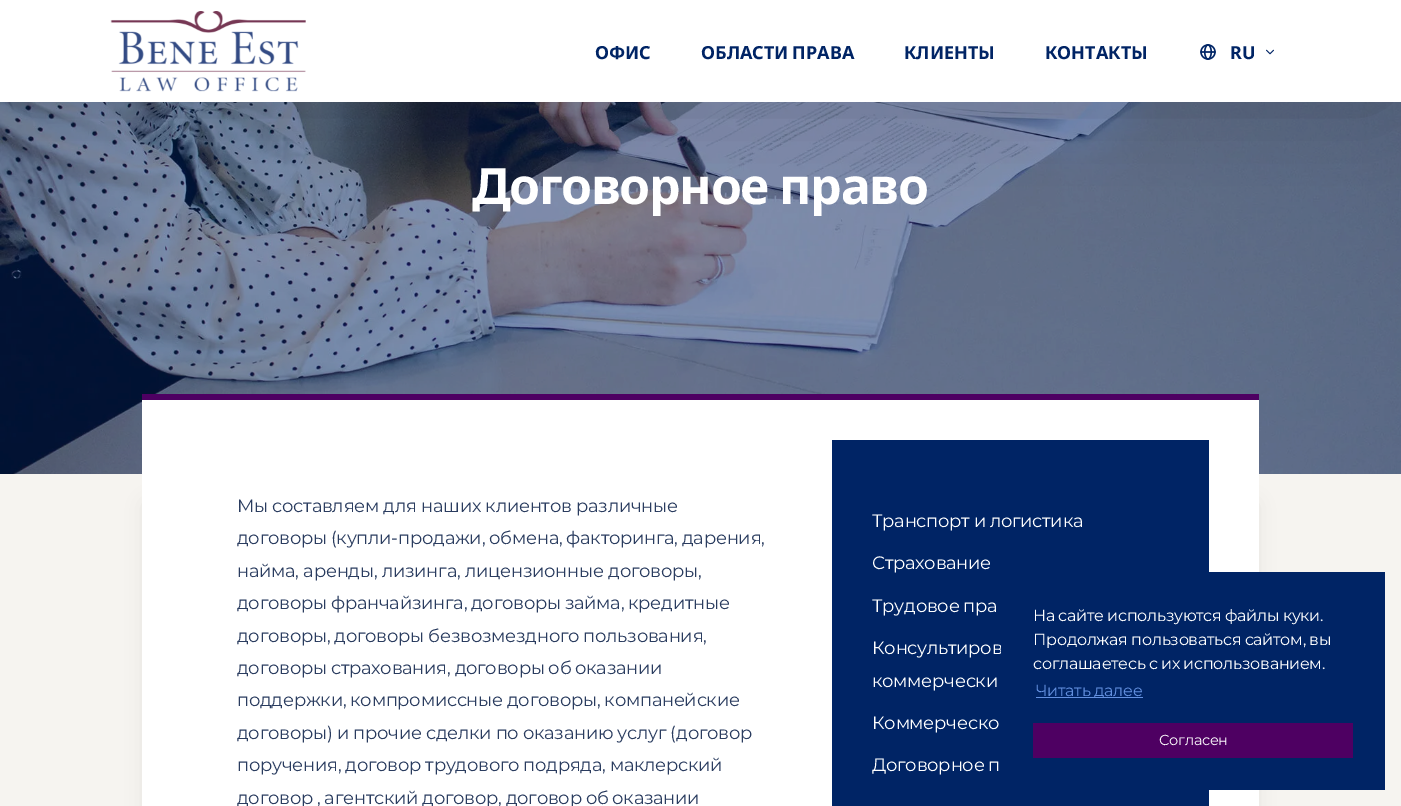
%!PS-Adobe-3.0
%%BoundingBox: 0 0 1401 806
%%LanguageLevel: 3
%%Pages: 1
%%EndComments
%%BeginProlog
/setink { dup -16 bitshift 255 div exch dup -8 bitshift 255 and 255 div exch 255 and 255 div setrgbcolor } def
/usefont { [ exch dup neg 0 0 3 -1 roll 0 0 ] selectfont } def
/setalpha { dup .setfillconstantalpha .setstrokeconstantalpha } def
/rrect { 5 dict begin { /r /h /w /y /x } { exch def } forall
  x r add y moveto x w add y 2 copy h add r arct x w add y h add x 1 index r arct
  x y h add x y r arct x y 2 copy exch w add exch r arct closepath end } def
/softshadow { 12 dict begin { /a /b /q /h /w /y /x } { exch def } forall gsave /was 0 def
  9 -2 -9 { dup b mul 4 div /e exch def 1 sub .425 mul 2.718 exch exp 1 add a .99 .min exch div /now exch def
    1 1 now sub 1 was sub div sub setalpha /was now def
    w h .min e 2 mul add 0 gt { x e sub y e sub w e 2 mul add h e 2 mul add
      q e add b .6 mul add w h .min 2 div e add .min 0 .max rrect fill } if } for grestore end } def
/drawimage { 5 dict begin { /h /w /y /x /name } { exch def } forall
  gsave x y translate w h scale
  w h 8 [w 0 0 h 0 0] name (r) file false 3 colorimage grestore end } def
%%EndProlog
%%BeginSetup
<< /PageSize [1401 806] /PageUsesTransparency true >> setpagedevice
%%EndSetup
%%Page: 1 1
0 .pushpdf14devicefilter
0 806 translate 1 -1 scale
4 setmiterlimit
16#FFFFFF setink
0 0 1401 806 rectfill
(img4.raw) 0 102 1401 372 drawimage
16#000000 setink
18 23 1361 62 0 45 0.25 softshadow
16#FFFFFF setink
0 0 1401 102 rectfill
(img1.raw) 110 11 196 81 drawimage
/NotoSans-Bold 18 usefont
16#002465 setink
595 59 moveto (ОФИС) show
701 59 moveto -1 0 32 (ОБЛАСТИ ПРАВА) widthshow
904 59 moveto (КЛИЕНТЫ) show
1045 59 moveto (КОНТАКТЫ) show
(img2.raw) 1200 44 16 16 drawimage
1230 59 moveto (RU) show
(img3.raw) 1266 49 8 6 drawimage
/NotoSans-Bold 50 usefont
16#FFFFFF setink
472 204 moveto -0.5 0 32 -1.4 0 (Договорное право) awidthshow
[
    [0 474 1401 332 16#F6F4F0]
    [142 394 1117 6 16#4E0062]
    [142 400 1117 80 16#FFFFFF]
] { aload pop setink rectfill } forall
16#000000 setink
147 505 1107 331 0 10 0.1 softshadow
16#FFFFFF setink
142 480 1117 326 rectfill
/Montserrat-Regular 18 usefont
16#2A3C5F setink
237 512 moveto -0.27 0 (Мы составляем для наших клиентов различные) ashow
237 544 moveto -0.5 0 32 -0.27 0 (договоры \(купли-продажи, обмена, факторинга, дарения,) awidthshow
237 577 moveto -0.27 0 (найма, аренды, лизинга, лицензионные договоры,) ashow
237 609 moveto -0.5 0 32 -0.27 0 (договоры франчайзинга, договоры займа, кредитные) awidthshow
237 642 moveto -0.5 0 32 -0.27 0 (договоры, договоры безвозмездного пользования,) awidthshow
237 674 moveto -0.5 0 32 -0.27 0 (договоры страхования, договоры об оказании) awidthshow
237 706 moveto -0.5 0 32 -0.27 0 (поддержки, компромиссные договоры, компанейские) awidthshow
237 739 moveto -0.25 0 32 -0.27 0 (договоры\) и прочие сделки по оказанию услуг \(договор) awidthshow
237 771 moveto -0.5 0 32 -0.27 0 (поручения, договор трудового подряда, маклерский) awidthshow
237 804 moveto -0.5 0 32 -0.27 0 (договор , агентский договор, договор об оказании) awidthshow
16#002465 setink
832 440 377 366 rectfill
16#FFFFFF setink
872 527 moveto -0.5 0 32 -0.27 0 (Транспорт и логистика) awidthshow
872 569 moveto -0.27 0 (Страхование) ashow
872 612 moveto -1 0 32 -0.27 0 (Трудовое пра) awidthshow
872 654 moveto -1 0 32 -0.27 0 (Консультиров) awidthshow
872 687 moveto -1 0 32 -0.27 0 (коммерчески) awidthshow
872 729 moveto -1 0 32 -0.27 0 (Коммерческо) awidthshow
872 771 moveto -1 0 32 -0.27 0 (Договорное п) awidthshow
16#002465 setink
1001 572 384 218 rectfill
/Montserrat-Regular 16 usefont
16#FFFFFF setink
1033 621 moveto -0.5 0 32 -0.27 0 (На сайте используются файлы куки.) awidthshow
1033 645 moveto -0.5 0 32 -0.27 0 (Продолжая пользоваться сайтом, вы) awidthshow
1033 669 moveto -0.5 0 32 -0.27 0 (соглашаетесь с их использованием.) awidthshow
16#6390E0 setink
1036 697 107 1 rectfill
1036 696 moveto -0.27 0 (Читать далее) ashow
16#4E0062 setink
1033 723 320 35 rectfill
/Montserrat-Regular 14.5 usefont
16#FFFFFF setink
1159 745 moveto -0.27 0 (Согласен) ashow
.poppdf14devicefilter showpage
%%EOF
